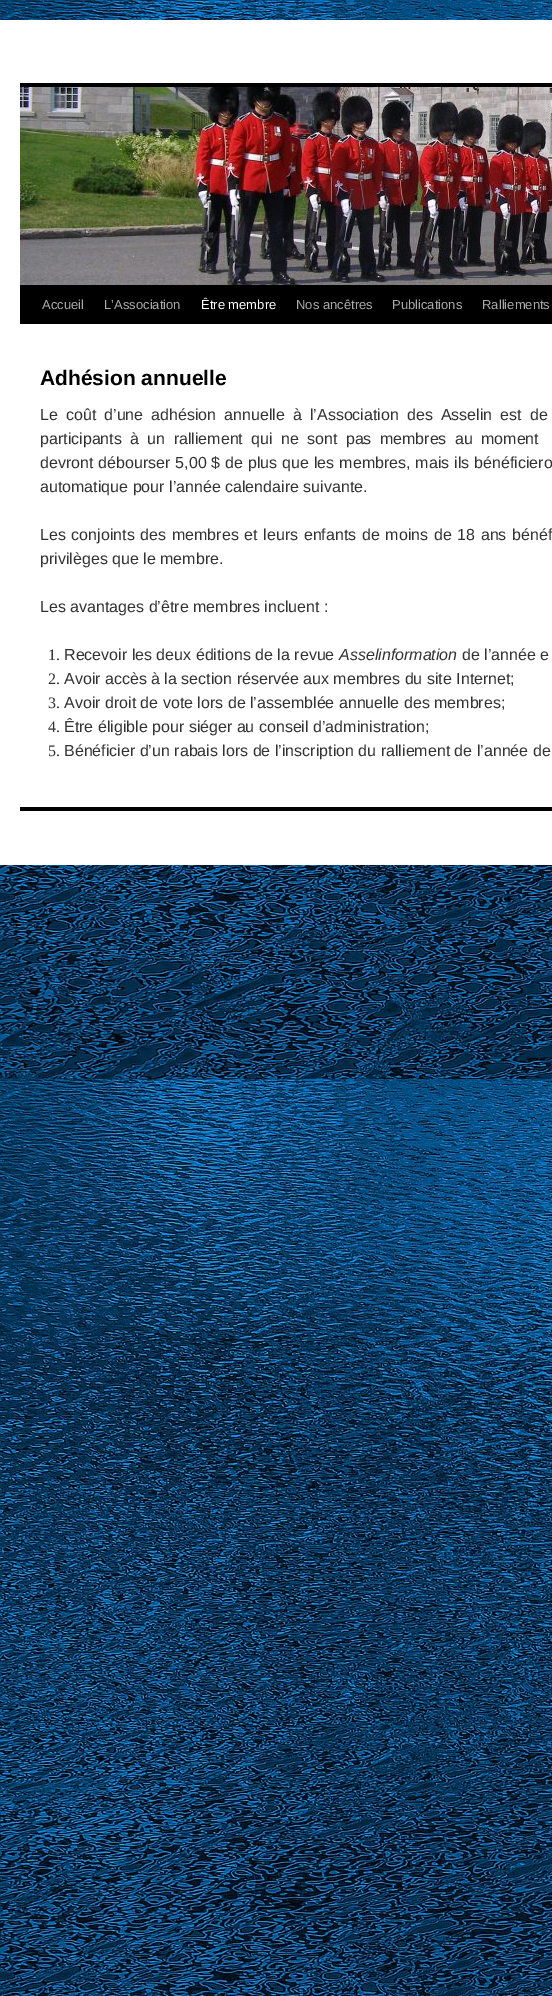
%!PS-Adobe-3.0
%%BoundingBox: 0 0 552 1996
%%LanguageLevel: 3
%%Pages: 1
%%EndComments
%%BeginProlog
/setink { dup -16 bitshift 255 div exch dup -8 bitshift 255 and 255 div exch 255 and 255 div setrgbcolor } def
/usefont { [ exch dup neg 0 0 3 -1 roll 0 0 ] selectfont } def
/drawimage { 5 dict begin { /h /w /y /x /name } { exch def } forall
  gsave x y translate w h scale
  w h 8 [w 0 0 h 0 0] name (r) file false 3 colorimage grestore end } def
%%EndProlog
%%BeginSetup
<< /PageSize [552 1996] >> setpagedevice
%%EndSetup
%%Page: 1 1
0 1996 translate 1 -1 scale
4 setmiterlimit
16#FFFFFF setink
0 0 552 1996 rectfill
(img1.raw) 0 0 552 1996 drawimage
[
    [0 20 552 845 16#FFFFFF]
    [20 83 532 4 16#000000]
    [20 285 532 39 16#000000]
] { aload pop setink rectfill } forall
(img2.raw) 20 87 532 198 drawimage
/LiberationSans-Regular 13 usefont
16#AAAAAA setink
42 309 moveto (Accueil) show
104 309 moveto (L’Association) show
16#FFFFFF setink
201 309 moveto (Être membre) show
16#AAAAAA setink
[
    [(Nos ancêtres) 296 309]
    [(Publications) 392 309]
    [(Ralliements) 482 309]
] { aload pop moveto show } forall
/LiberationSans-Bold 21 usefont
16#000000 setink
40 385 moveto (Adhésion annuelle) show
/LiberationSans-Regular 16 usefont
16#333333 setink
40 420 moveto 3.6 0 32 (Le coût d’une adhésion annuelle à l’Association des Asselin est de) widthshow
40 444 moveto 3.9 0 32 (participants à un ralliement qui ne sont pas membres au moment) widthshow
40 468 moveto 0.5 0 32 (devront débourser 5,00 $ de plus que les membres, mais ils bénéficiero) widthshow
40 492 moveto (automatique pour l’année calendaire suivante.) show
40 540 moveto 1.25 0 32 (Les conjoints des membres et leurs enfants de moins de 18 ans bénéf) widthshow
40 564 moveto (privilèges que le membre.) show
40 612 moveto (Les avantages d’être membres incluent :) show
/LiberationSerif-Regular 16 usefont
48 660 moveto (1.) show
/LiberationSans-Regular 16 usefont
64 660 moveto (Recevoir les deux éditions de la revue) show
/LiberationSans-Italic 16 usefont
339 660 moveto (Asselinformation) show
/LiberationSans-Regular 16 usefont
462 660 moveto (de l’année e) show
/LiberationSerif-Regular 16 usefont
48 684 moveto (2.) show
/LiberationSans-Regular 16 usefont
64 684 moveto (Avoir accès à la section réservée aux membres du site Internet;) show
/LiberationSerif-Regular 16 usefont
48 708 moveto (3.) show
/LiberationSans-Regular 16 usefont
64 708 moveto (Avoir droit de vote lors de l’assemblée annuelle des membres;) show
/LiberationSerif-Regular 16 usefont
48 732 moveto (4.) show
/LiberationSans-Regular 16 usefont
64 732 moveto (Être éligible pour siéger au conseil d’administration;) show
/LiberationSerif-Regular 16 usefont
48 756 moveto (5.) show
/LiberationSans-Regular 16 usefont
64 756 moveto (Bénéficier d’un rabais lors de l’inscription du ralliement de l’année de) show
16#000000 setink
20 807 532 4 rectfill
showpage
%%EOF
